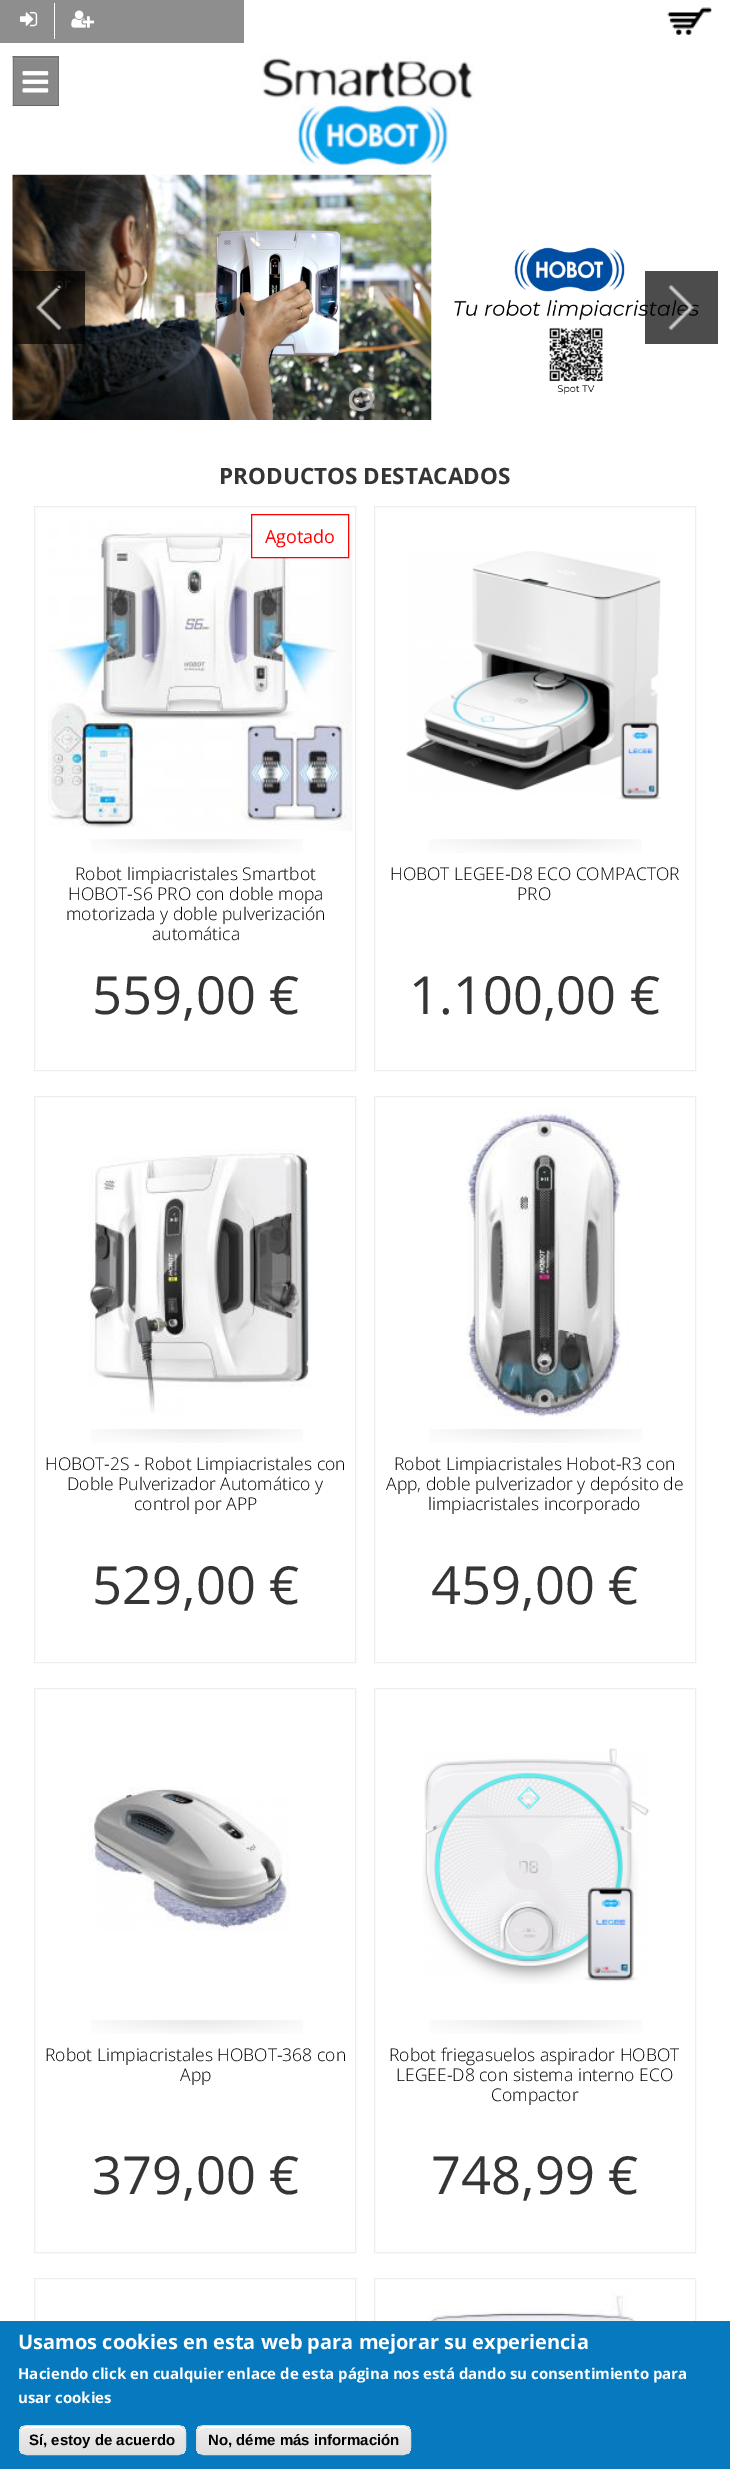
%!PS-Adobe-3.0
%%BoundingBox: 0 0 730 2469
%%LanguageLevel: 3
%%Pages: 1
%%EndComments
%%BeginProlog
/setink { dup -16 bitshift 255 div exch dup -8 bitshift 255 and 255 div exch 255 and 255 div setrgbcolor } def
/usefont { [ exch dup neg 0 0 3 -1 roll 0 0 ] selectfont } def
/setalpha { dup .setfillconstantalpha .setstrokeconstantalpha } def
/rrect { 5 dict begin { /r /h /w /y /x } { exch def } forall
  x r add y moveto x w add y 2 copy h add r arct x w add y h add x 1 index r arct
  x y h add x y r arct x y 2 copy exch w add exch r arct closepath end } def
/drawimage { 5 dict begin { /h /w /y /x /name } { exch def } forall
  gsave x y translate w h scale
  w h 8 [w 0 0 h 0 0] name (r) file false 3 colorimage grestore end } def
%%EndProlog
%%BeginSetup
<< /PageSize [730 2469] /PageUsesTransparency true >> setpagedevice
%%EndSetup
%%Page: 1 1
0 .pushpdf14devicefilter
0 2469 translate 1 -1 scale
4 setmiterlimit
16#FFFFFF setink
0 0 730 2469 rectfill
16#8E8E8E setink
0 0 244 43 rectfill
16#FFFFFF setink
54 3 1 36 rectfill
(img1.raw) 20 11 18 16 drawimage
(img2.raw) 71 10 24 18 drawimage
(img3.raw) 667 7 45 28 drawimage
16#888888 setink
13 56 46 50 rectfill
16#949494 setink
14 58 44 1 rectfill
16#747474 setink
12 56 moveto 59 56 lineto 58 58 lineto 14 58 lineto closepath fill
0.15 setalpha
16#000000 setink
59 56 moveto 59 106 lineto 58 105 lineto 58 58 lineto closepath fill
0.25 setalpha
59 106 moveto 12 106 lineto 14 105 lineto 58 105 lineto closepath fill
0.15 setalpha
12 106 moveto 12 56 lineto 14 58 lineto 14 105 lineto closepath fill
1 setalpha
(img4.raw) 22 71 27 22 drawimage
(img5.raw) 260 55 215 111 drawimage
(img6.raw) 12 174 687 246 drawimage
0.7 setalpha
13 271 72 73 rectfill
1 setalpha
(img7.raw) 36 285 26 46 drawimage
/OpenSans-Regular 15 usefont
16#211C17 setink
55 289 moveto (or) show
0.7 setalpha
16#000000 setink
645 271 73 73 rectfill
1 setalpha
(img8.raw) 668 285 26 46 drawimage
16#AAAAAA setink
3 setlinewidth
350.5 389.5 21 20 10 rrect stroke
16#8D8A85 setink
356 408 moveto (*) show
/OpenSans-Bold 22.5 usefont
16#353535 setink
219 484 moveto (PRODUCTOS DESTACADOS) show
16#EEEEEE setink
1 setlinewidth
34.5 506.5 321 564 rectstroke
(img9.raw) 48 519 305 312 drawimage
16#FFFFFF setink
252 519 96 38 rectfill
16#FF0000 setink
251.5 514.5 97 43 rectstroke
/OpenSans-Regular 18 usefont
265 543 moveto (Agotado) show
(img10.raw) 91 839 212 14 drawimage
/OpenSans-Light 17.5 usefont
16#000000 setink
[
    [(Robot limpiacristales Smartbot) 75 880]
    [(HOBOT-S6 PRO con doble mopa) 68 900]
    [(motorizada y doble pulverización) 66 920]
    [(automática) 152 940]
] { aload pop moveto show } forall
/OpenSans-Regular 52.5 usefont
16#353535 setink
92 1014 moveto (559,00 €) show
16#EEEEEE setink
374.5 506.5 321 564 rectstroke
(img11.raw) 406 551 255 249 drawimage
(img12.raw) 429 839 213 14 drawimage
/OpenSans-Light 17.5 usefont
16#000000 setink
390 880 moveto (HOBOT LEGEE-D8 ECO COMPACTOR) show
517 900 moveto (PRO) show
/OpenSans-Regular 52.5 usefont
16#353535 setink
409 1014 moveto (1.100,00 €) show
16#EEEEEE setink
34.5 1096.5 321 566 rectstroke
(img13.raw) 88 1149 221 265 drawimage
(img10.raw) 91 1429 212 14 drawimage
/OpenSans-Light 17.5 usefont
16#000000 setink
[
    [(HOBOT-2S - Robot Limpiacristales con) 45 1470]
    [(Doble Pulverizador Automático y) 67 1490]
    [(control por APP) 134 1510]
] { aload pop moveto show } forall
/OpenSans-Regular 52.5 usefont
16#353535 setink
92 1604 moveto (529,00 €) show
16#EEEEEE setink
374.5 1096.5 321 566 rectstroke
(img14.raw) 464 1109 165 308 drawimage
(img12.raw) 429 1429 213 14 drawimage
/OpenSans-Light 17.5 usefont
16#000000 setink
[
    [(Robot Limpiacristales Hobot-R3 con) 394 1470]
    [(App, doble pulverizador y depósito de) 386 1490]
    [(limpiacristales incorporado) 428 1510]
] { aload pop moveto show } forall
/OpenSans-Regular 52.5 usefont
16#353535 setink
431 1604 moveto (459,00 €) show
16#EEEEEE setink
34.5 1688.5 321 564 rectstroke
(img15.raw) 79 1787 211 144 drawimage
(img16.raw) 91 2020 212 14 drawimage
/OpenSans-Light 17.5 usefont
16#000000 setink
45 2061 moveto (Robot Limpiacristales HOBOT-368 con) show
180 2081 moveto (App) show
/OpenSans-Regular 52.5 usefont
16#353535 setink
92 2194 moveto (379,00 €) show
16#EEEEEE setink
374.5 1688.5 321 564 rectstroke
(img17.raw) 422 1748 228 236 drawimage
(img18.raw) 429 2020 213 14 drawimage
/OpenSans-Light 17.5 usefont
16#000000 setink
[
    [(Robot friegasuelos aspirador HOBOT) 389 2061]
    [(LEGEE-D8 con sistema interno ECO) 396 2081]
    [(Compactor) 491 2101]
] { aload pop moveto show } forall
/OpenSans-Regular 52.5 usefont
16#353535 setink
431 2194 moveto (748,99 €) show
16#EEEEEE setink
34.5 2278.5 321 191 rectstroke
374.5 2278.5 321 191 rectstroke
(img19.raw) 419 2290 242 31 drawimage
16#0779BF setink
0 2321 730 148 rectfill
/OpenSans-Bold 20 usefont
16#FFFFFF setink
18 2349 moveto (Usamos cookies en esta web para mejorar su experiencia) show
/OpenSans-Bold 15 usefont
18 2379 moveto (Haciendo click en cualquier enlace de esta página nos está dando su consentimiento para) show
18 2403 moveto (usar cookies) show
gsave
19 2425 167 30 8 rrect clip newpath
gsave 19 2426 moveto 186 2426 lineto 186 2454 lineto 19 2454 lineto closepath clip newpath
<< /ShadingType 2 /ColorSpace /DeviceRGB /Coords [103 2426 103 2454] /Extend [true true] /Function << /FunctionType 3 /Domain [0 1] /Functions [<< /FunctionType 2 /Domain [0 1] /C0 [0.929 0.929 0.929] /C1 [0.929 0.929 0.929] /N 1 >> << /FunctionType 2 /Domain [0 1] /C0 [0.929 0.929 0.929] /C1 [0.875 0.875 0.875] /N 1 >>] /Bounds [0.05] /Encode [0 1 0 1] >> >> shfill grestore
grestore
26 2428 moveto 179 2428 lineto 182 2428 185 2430 185 2434 curveto 185 2432 lineto 185 2429 182 2426 179 2426 curveto 26 2426 lineto 23 2426 20 2429 20 2432 curveto 20 2434 lineto 20 2430 23 2428 26 2428 curveto closepath fill
16#DCDCDC setink
19.5 2425.5 166 29 7.5 rrect stroke
/LiberationSans-Bold 15 usefont
16#000000 setink
29 2445 moveto (Sí, estoy de acuerdo) show
gsave
196 2425 215 30 8 rrect clip newpath
gsave 196 2426 moveto 411 2426 lineto 411 2454 lineto 196 2454 lineto closepath clip newpath
<< /ShadingType 2 /ColorSpace /DeviceRGB /Coords [304 2426 304 2454] /Extend [true true] /Function << /FunctionType 3 /Domain [0 1] /Functions [<< /FunctionType 2 /Domain [0 1] /C0 [0.929 0.929 0.929] /C1 [0.929 0.929 0.929] /N 1 >> << /FunctionType 2 /Domain [0 1] /C0 [0.929 0.929 0.929] /C1 [0.875 0.875 0.875] /N 1 >>] /Bounds [0.05] /Encode [0 1 0 1] >> >> shfill grestore
grestore
16#FFFFFF setink
204 2428 moveto 404 2428 lineto 407 2428 410 2430 410 2434 curveto 410 2432 lineto 410 2429 407 2426 404 2426 curveto 204 2426 lineto 201 2426 198 2429 198 2432 curveto 198 2434 lineto 198 2430 200 2428 204 2428 curveto closepath fill
16#DCDCDC setink
196.5 2425.5 214 29 7.5 rrect stroke
16#000000 setink
208 2445 moveto (No, déme más información) show
.poppdf14devicefilter showpage
%%EOF
